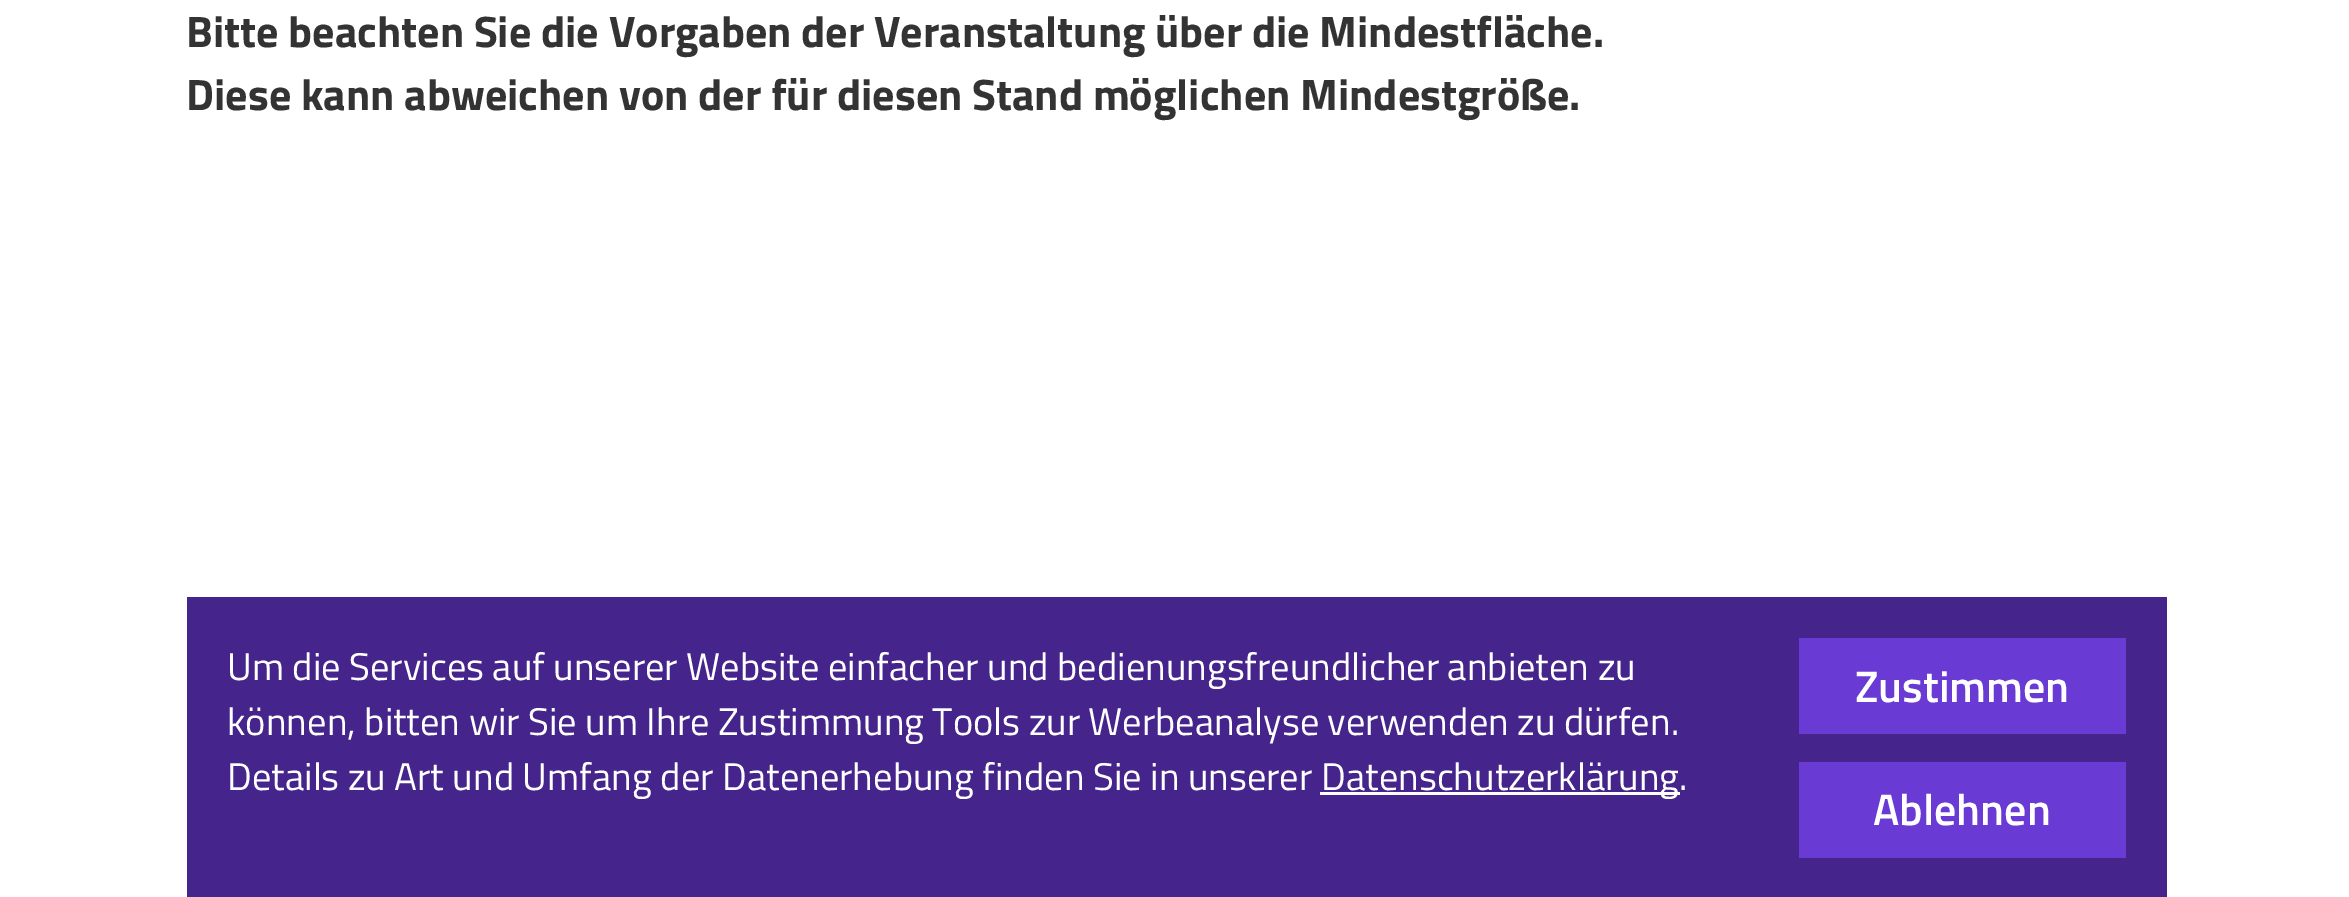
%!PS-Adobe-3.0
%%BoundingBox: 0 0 2349 897
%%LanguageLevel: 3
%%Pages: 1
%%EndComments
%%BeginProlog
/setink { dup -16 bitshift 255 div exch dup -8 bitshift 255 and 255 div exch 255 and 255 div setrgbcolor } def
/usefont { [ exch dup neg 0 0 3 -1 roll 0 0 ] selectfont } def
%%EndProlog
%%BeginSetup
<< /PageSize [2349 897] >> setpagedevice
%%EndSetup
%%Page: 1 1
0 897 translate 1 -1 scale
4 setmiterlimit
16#FFFFFF setink
0 0 2349 897 rectfill
/TitilliumWeb-Bold 44 usefont
16#333333 setink
186 47 moveto (Bitte beachten Sie die Vorgaben der Veranstaltung über die Mindestfläche.) show
186 110 moveto (Diese kann abweichen von der für diesen Stand möglichen Mindestgröße.) show
16#45258C setink
187 597 1980 300 rectfill
/TitilliumWeb-Regular 38.5 usefont
16#FFFFFF setink
[
    [(Um die Services auf unserer Website einfacher und bedienungsfreundlicher anbieten zu) 227 680]
    [(können, bitten wir Sie um Ihre Zustimmung Tools zur Werbeanalyse verwenden zu dürfen.) 227 735]
    [(Details zu Art und Umfang der Datenerhebung finden Sie in unserer) 227 790]
] { aload pop moveto show } forall
1320 792 360 3 rectfill
1321 790 moveto (Datenschutzerklärung.) show
16#6A3AD4 setink
1799 638 327 96 rectfill
/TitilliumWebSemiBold-SemiBold 44 usefont
16#FFFFFF setink
1855 702 moveto (Zustimmen) show
16#6A3AD4 setink
1799 762 327 96 rectfill
16#FFFFFF setink
1873 825 moveto (Ablehnen) show
showpage
%%EOF
